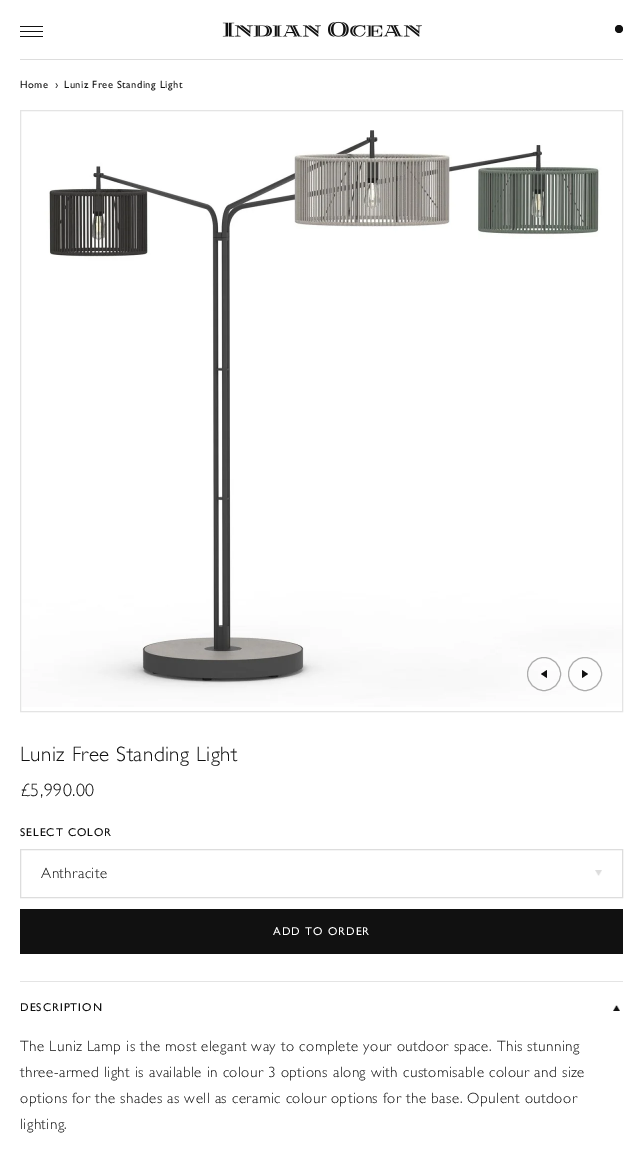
%!PS-Adobe-3.0
%%BoundingBox: 0 0 643 1170
%%LanguageLevel: 3
%%Pages: 1
%%EndComments
%%BeginProlog
/setink { dup -16 bitshift 255 div exch dup -8 bitshift 255 and 255 div exch 255 and 255 div setrgbcolor } def
/usefont { [ exch dup neg 0 0 3 -1 roll 0 0 ] selectfont } def
/disc { newpath 0 360 arc closepath } def
/drawimage { 5 dict begin { /h /w /y /x /name } { exch def } forall
  gsave x y translate w h scale
  w h 8 [w 0 0 h 0 0] name (r) file false 3 colorimage grestore end } def
%%EndProlog
%%BeginSetup
<< /PageSize [643 1170] >> setpagedevice
%%EndSetup
%%Page: 1 1
0 1170 translate 1 -1 scale
4 setmiterlimit
16#FFFFFF setink
0 0 643 1170 rectfill
[
    [20 26 23 1 16#111111]
    [20 36 23 1 16#111111]
    [20 31 23 1 16#111111]
] { aload pop setink rectfill } forall
(img1.raw) 222 21 200 16 drawimage
619 29 4 disc fill
16#DDDDDD setink
20 59 603 1 rectfill
/GillSans-Regular 10.5 usefont
16#111111 setink
20 88 moveto 0.5 0 (Home) ashow
55 88 moveto 0.5 0 (›) ashow
64 88 moveto 0.5 0 (Luniz Free Standing Light) ashow
16#E4E4E4 setink
20.5 110.5 602 601 rectstroke
(img2.raw) 22 130 600 577 drawimage
16#ACACAC setink
544 674 16.5 disc stroke
16#111111 setink
547 670 moveto 547 678 lineto 541 674 lineto closepath fill
16#ACACAC setink
585 674 16.5 disc stroke
16#111111 setink
582 678 moveto 582 670 lineto 588 674 lineto closepath fill
/GillSans-Light 21 usefont
20 761 moveto 0.5 0 (Luniz Free Standing Light) ashow
/GillSans-Light 18 usefont
20 796 moveto 0.5 0 (£5,990.00) ashow
/GillSans-Regular 11.5 usefont
20 836 moveto 1 0 (SELECT COLOR) ashow
16#DDDDDD setink
20.5 849.5 602 48 rectstroke
/GillSans-Light 15 usefont
16#111111 setink
41 878 moveto 0.5 0 (Anthracite) ashow
(img3.raw) 595 870 7 6 drawimage
20 909 603 45 rectfill
/GillSans-Regular 11.5 usefont
16#FFFFFF setink
273 935 moveto 1 0 (ADD TO ORDER) ashow
16#E4E4E4 setink
20 981 603 1 rectfill
16#111111 setink
20 1011 moveto 1 0 (DESCRIPTION) ashow
(img4.raw) 613 1005 7 6 drawimage
/GillSans-Light 15 usefont
20 1051 moveto 0.5 0 (The Luniz Lamp is the most elegant way to complete your outdoor space. This stunning) ashow
20 1077 moveto 0.5 0 (three-armed light is available in colour 3 options along with customisable colour and size) ashow
20 1103 moveto 0.5 0 (options for the shades as well as ceramic colour options for the base. Opulent outdoor) ashow
20 1129 moveto 0.5 0 (lighting.) ashow
showpage
%%EOF
